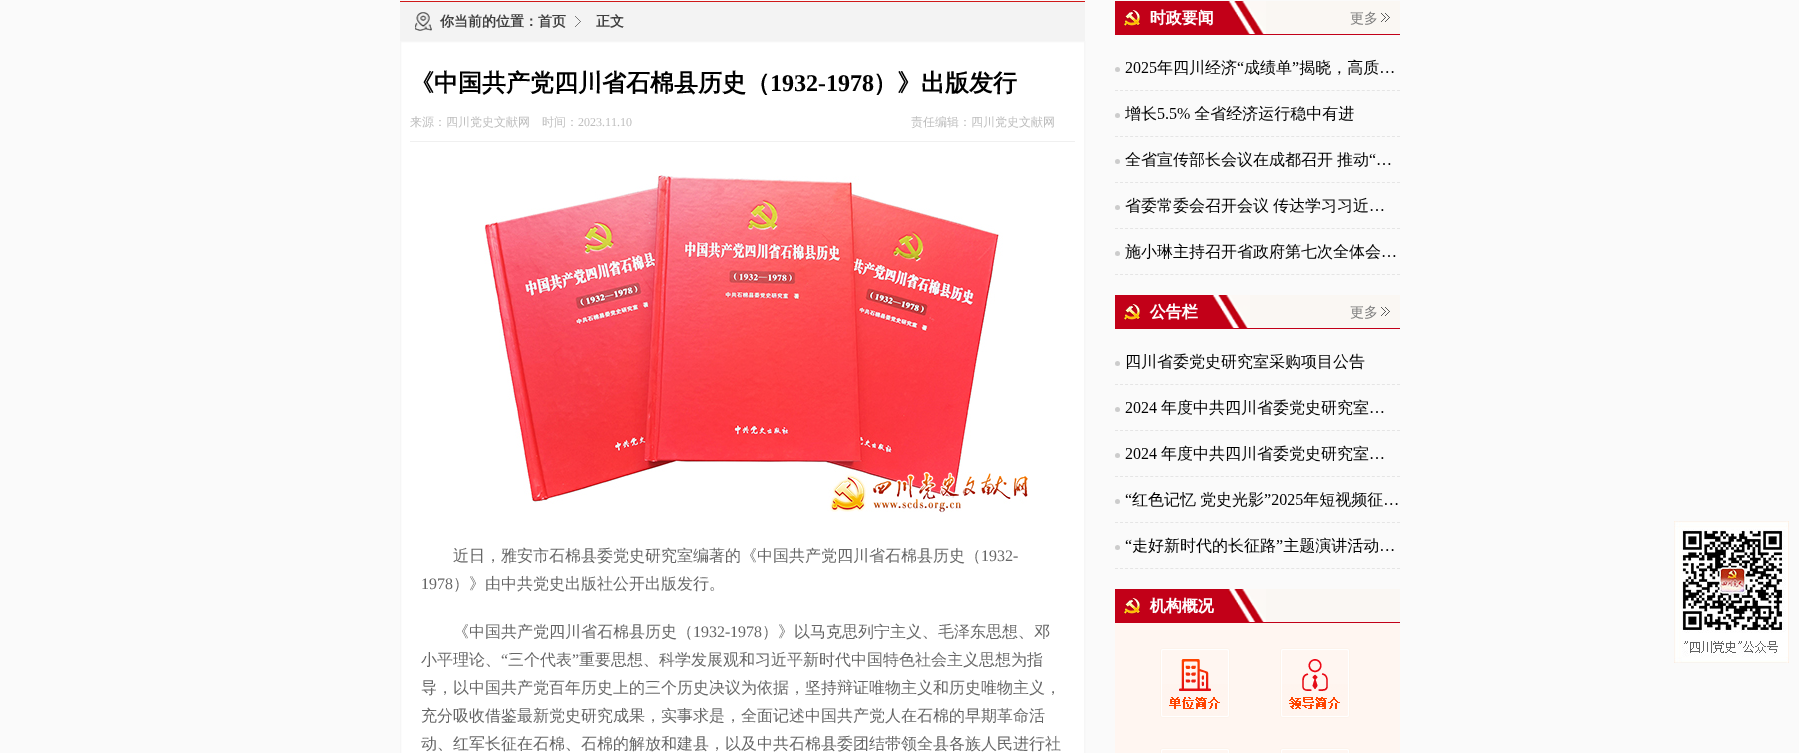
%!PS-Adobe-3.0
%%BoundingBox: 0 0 1799 753
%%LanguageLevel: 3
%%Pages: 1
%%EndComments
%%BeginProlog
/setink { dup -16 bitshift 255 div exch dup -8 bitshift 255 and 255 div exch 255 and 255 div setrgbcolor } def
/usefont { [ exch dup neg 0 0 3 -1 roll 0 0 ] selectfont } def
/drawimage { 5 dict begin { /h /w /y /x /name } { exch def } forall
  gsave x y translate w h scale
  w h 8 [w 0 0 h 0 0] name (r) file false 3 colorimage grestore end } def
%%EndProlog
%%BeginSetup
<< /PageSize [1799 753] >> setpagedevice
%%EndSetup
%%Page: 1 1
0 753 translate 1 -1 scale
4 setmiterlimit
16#FAFAFA setink
0 0 1799 753 rectfill
16#F3F3F3 setink
400 2 685 39 rectfill
16#D01818 setink
400 1 685 1 rectfill
(img1.raw) 415 12 17 19 drawimage
/WenQuanYiZenHei-Bold 14 usefont
16#404040 setink
440 26 moveto (你当前的位置：首页) show
(img2.raw) 575 16 6 11 drawimage
596 26 moveto (正文) show
16#FFFFFF setink
400.5 41.5 moveto 1084.5 41.5 lineto 1084.5 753.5 lineto 400.5 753.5 lineto closepath gsave fill grestore
16#F6F6F6 setink
stroke
/WenQuanYiZenHei-Bold 24 usefont
16#000000 setink
410 91 moveto (《中国共产党四川省石棉县历史（) show
/LiberationSerif-Bold 24 usefont
770 91 moveto (1932-1978) show
/WenQuanYiZenHei-Bold 24 usefont
873 91 moveto (）》出版发行) show
16#F0F0F0 setink
410 141 665 1 rectfill
/WenQuanYiZenHei-Medium 12 usefont
16#BDBDBD setink
410 126 moveto (来源：四川党史文献网) show
542 126 moveto (时间：) show
/LiberationSerif-Regular 12 usefont
578 126 moveto (2023.11.10) show
/WenQuanYiZenHei-Medium 12 usefont
911 126 moveto (责任编辑：四川党史文献网) show
(img3.raw) 484 175 544 338 drawimage
/WenQuanYiZenHei-Medium 16 usefont
16#666666 setink
453 561 moveto (近日，雅安市石棉县委党史研究室编著的《中国共产党四川省石棉县历史（) show
/LiberationSerif-Regular 16 usefont
981 561 moveto (1932-) show
421 589 moveto (1978) show
/WenQuanYiZenHei-Medium 16 usefont
453 589 moveto (）》由中共党史出版社公开出版发行。) show
453 637 moveto (《中国共产党四川省石棉县历史（) show
/LiberationSerif-Regular 16 usefont
693 637 moveto (1932-1978) show
/WenQuanYiZenHei-Medium 16 usefont
762 637 moveto (）》以马克思列宁主义、毛泽东思想、邓) show
421 665 moveto (小平理论、) show
/LiberationSerif-Regular 16 usefont
501 665 moveto (“) show
/WenQuanYiZenHei-Medium 16 usefont
508 665 moveto (三个代表) show
/LiberationSerif-Regular 16 usefont
572 665 moveto (”) show
/WenQuanYiZenHei-Medium 16 usefont
[
    [(重要思想、科学发展观和习近平新时代中国特色社会主义思想为指) 579 665]
    [(导，以中国共产党百年历史上的三个历史决议为依据，坚持辩证唯物主义和历史唯物主义，) 421 693]
    [(充分吸收借鉴最新党史研究成果，实事求是，全面记述中国共产党人在石棉的早期革命活) 421 721]
    [(动、红军长征在石棉、石棉的解放和建县，以及中共石棉县委团结带领全县各族人民进行社) 421 749]
] { aload pop moveto show } forall
(img4.raw) 1115 1 285 752 drawimage
(img5.raw) 1674 521 115 142 drawimage
showpage
%%EOF
